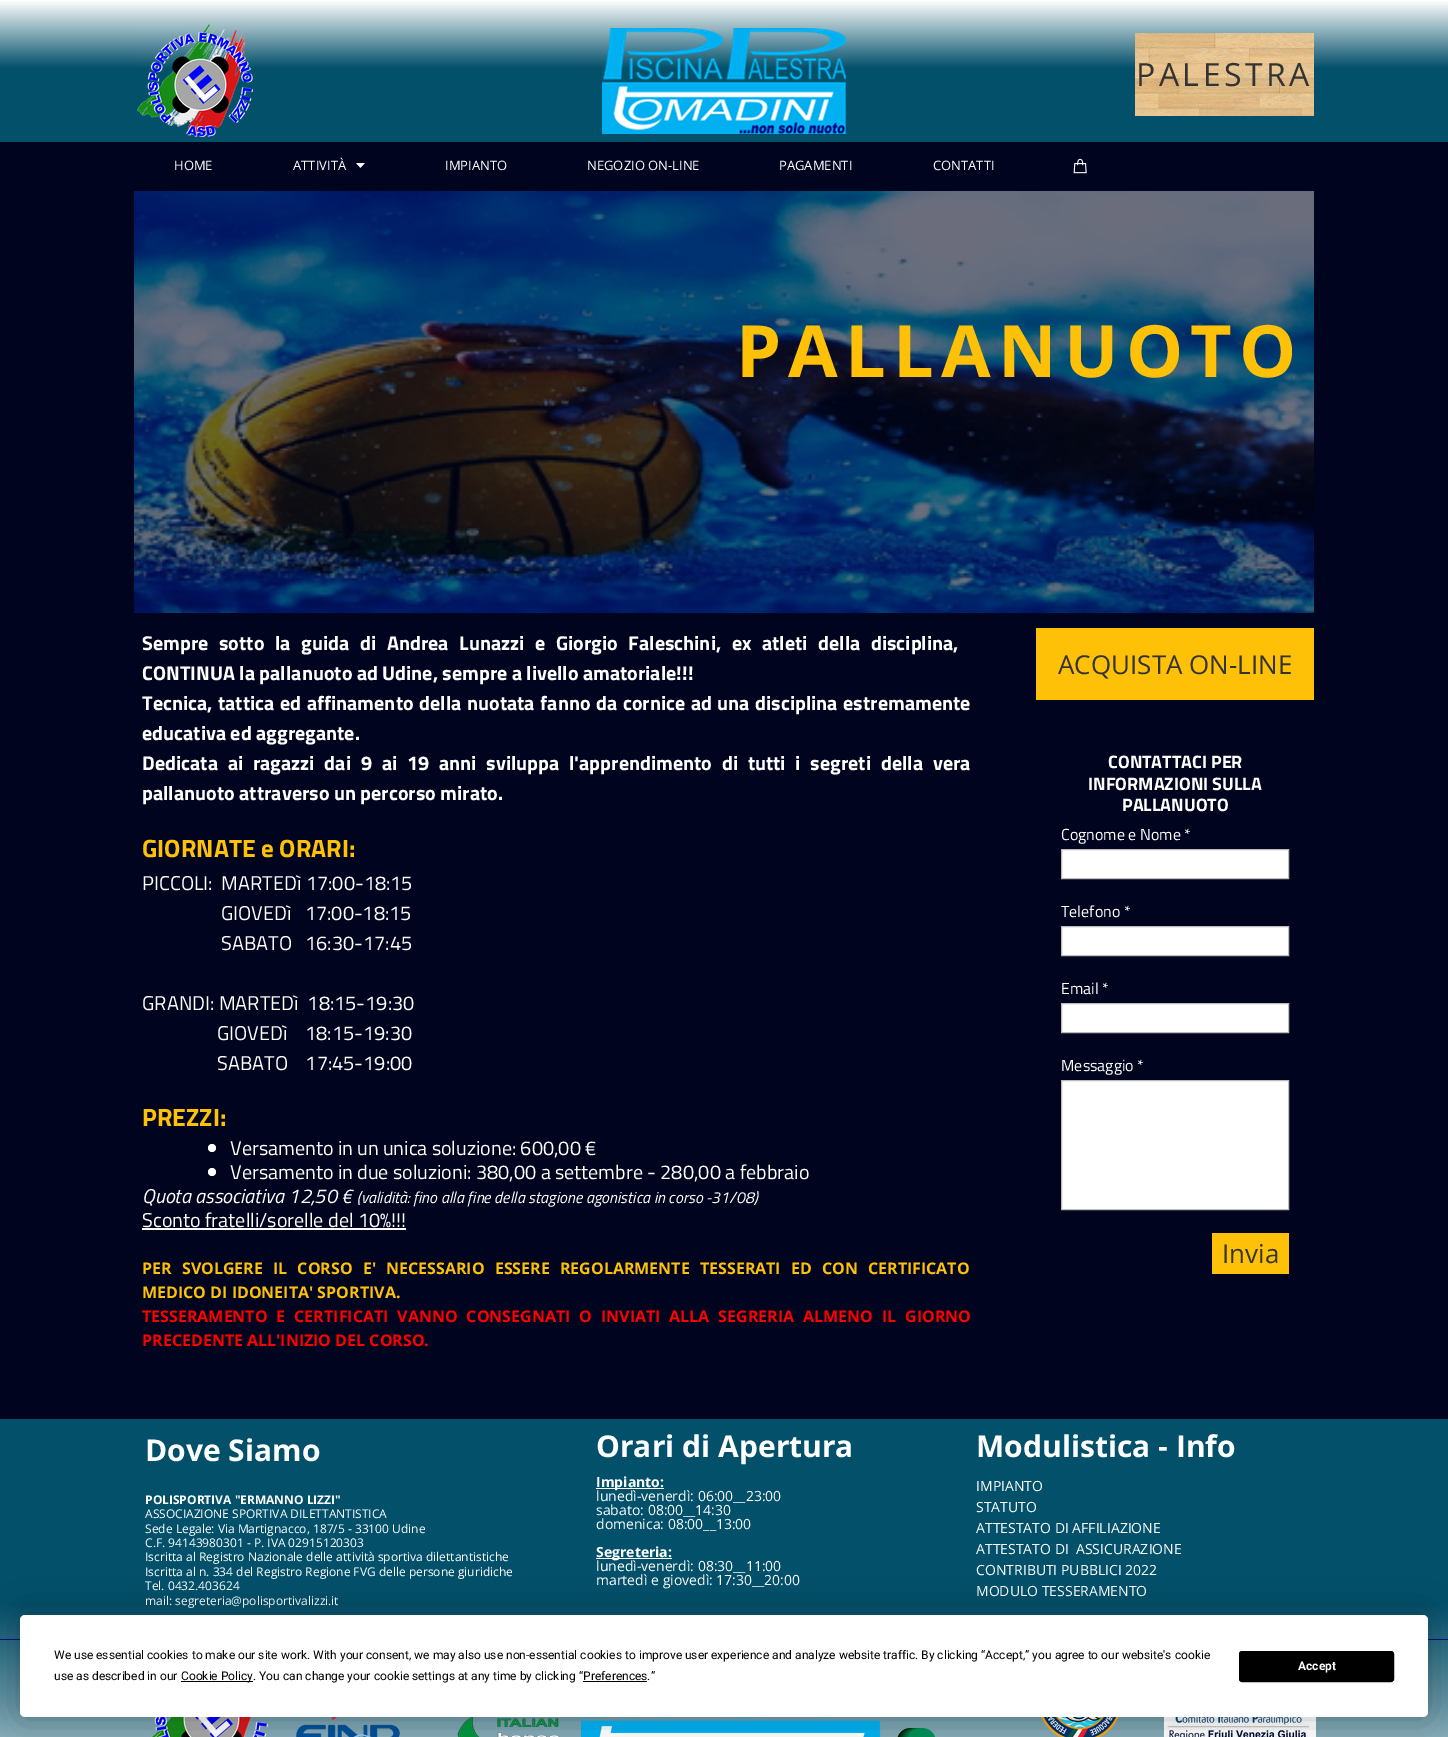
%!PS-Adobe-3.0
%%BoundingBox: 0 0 1448 1737
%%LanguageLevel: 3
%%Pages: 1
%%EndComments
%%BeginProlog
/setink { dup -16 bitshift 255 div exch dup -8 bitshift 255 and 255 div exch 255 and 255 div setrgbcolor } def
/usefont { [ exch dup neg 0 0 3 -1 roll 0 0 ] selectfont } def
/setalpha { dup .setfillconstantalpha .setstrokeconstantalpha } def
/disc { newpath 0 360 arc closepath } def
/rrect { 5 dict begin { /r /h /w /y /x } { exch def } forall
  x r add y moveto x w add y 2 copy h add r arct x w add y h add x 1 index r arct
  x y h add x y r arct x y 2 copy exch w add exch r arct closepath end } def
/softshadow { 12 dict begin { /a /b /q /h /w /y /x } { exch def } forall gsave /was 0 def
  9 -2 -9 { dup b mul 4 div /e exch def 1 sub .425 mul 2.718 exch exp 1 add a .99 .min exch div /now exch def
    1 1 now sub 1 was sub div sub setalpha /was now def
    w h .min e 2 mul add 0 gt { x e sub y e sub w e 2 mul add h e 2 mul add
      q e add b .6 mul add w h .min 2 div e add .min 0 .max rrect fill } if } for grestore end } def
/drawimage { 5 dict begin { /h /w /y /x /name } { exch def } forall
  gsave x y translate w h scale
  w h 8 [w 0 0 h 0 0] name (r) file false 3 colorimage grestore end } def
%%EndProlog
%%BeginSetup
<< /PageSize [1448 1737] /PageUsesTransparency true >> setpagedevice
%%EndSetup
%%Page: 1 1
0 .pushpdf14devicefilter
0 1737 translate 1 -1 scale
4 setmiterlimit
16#00041E setink
0 0 1448 1737 rectfill
gsave 0 0 moveto 1448 0 lineto 1448 142 lineto 0 142 lineto closepath clip newpath
<< /ShadingType 2 /ColorSpace /DeviceRGB /Coords [724 142 724 0] /Extend [true true] /Function << /FunctionType 3 /Domain [0 1] /Functions [<< /FunctionType 2 /Domain [0 1] /C0 [0.012 0.314 0.416] /C1 [0.012 0.314 0.416] /N 1 >> << /FunctionType 2 /Domain [0 1] /C0 [0.012 0.314 0.416] /C1 [1 1 1] /N 1 >>] /Bounds [0.52] /Encode [0 1 0 1] >> >> shfill grestore
(img1.raw) 137 24 116 113 drawimage
(img2.raw) 602 28 244 106 drawimage
(img3.raw) 1135 33 179 83 drawimage
/OpenSans-Regular 32 usefont
16#333333 setink
1136 86 moveto 3.5 0 (PALESTRA) ashow
/OpenSans-Regular 13 usefont
16#FFFFFF setink
174 170 moveto (HOME) show
(img4.raw) 356 163 9 5 drawimage
[
    [(ATTIVITÀ) 293 170]
    [(IMPIANTO) 445 170]
    [(NEGOZIO ON-LINE) 587 170]
    [(PAGAMENTI) 779 170]
    [(CONTATTI) 933 170]
] { aload pop moveto show } forall
(img5.raw) 1073 158 14 16 drawimage
(img6.raw) 134 191 1180 422 drawimage
/OpenSans-Bold 72 usefont
16#FEC107 setink
736 377 moveto 7.25 0 (PALLANUOTO) ashow
/TitilliumWeb-Bold 20 usefont
16#FFFFFF setink
142 650 moveto 6.25 0 32 (Sempre sotto la guida di Andrea Lunazzi e Giorgio Faleschini, ex atleti della disciplina,) widthshow
142 680 moveto (CONTINUA la pallanuoto ad Udine, sempre a livello amatoriale!!!) show
142 710 moveto 1.2 0 32 (Tecnica, tattica ed affinamento della nuotata fanno da cornice ad una disciplina estremamente) widthshow
142 740 moveto (educativa ed aggregante.) show
142 770 moveto 5.4 0 32 (Dedicata ai ragazzi dai 9 ai 19 anni sviluppa l'apprendimento di tutti i segreti della vera) widthshow
142 800 moveto (pallanuoto attraverso un percorso mirato.) show
/TitilliumWeb-Bold 25 usefont
16#FEC107 setink
142 857 moveto (GIORNATE e ORARI:) show
/TitilliumWeb-Regular 20 usefont
16#FFFFFF setink
[
    [(PICCOLI:  MARTEDì 17:00-18:15) 142 890]
    [(GIOVEDì   17:00-18:15) 221 920]
    [(SABATO   16:30-17:45) 221 950]
    [(GRANDI: MARTEDì  18:15-19:30) 142 1010]
    [(GIOVEDì    18:15-19:30) 217 1040]
    [(SABATO    17:45-19:00) 217 1070]
] { aload pop moveto show } forall
/TitilliumWeb-Bold 25 usefont
16#FEC107 setink
142 1126 moveto (PREZZI:) show
16#FFFFFF setink
212 1148 4 disc fill
/TitilliumWeb-Regular 20 usefont
230 1155 moveto (Versamento in un unica soluzione: 600,00 €) show
212 1172 4 disc fill
230 1179 moveto (Versamento in due soluzioni: 380,00 a settembre - 280,00 a febbraio) show
/TitilliumWeb-Italic 20 usefont
142 1203 moveto (Quota associativa 12,50 €) show
/TitilliumWeb-Italic 16 usefont
357 1203 moveto (\(validità: fino alla fine della stagione agonistica in corso -31/08\)) show
/TitilliumWeb-Regular 20 usefont
142 1227 moveto (Sconto fratelli/sorelle del 10%!!!) show
142 1228 264 2 rectfill
/OpenSans-Bold 16 usefont
16#FEC107 setink
142 1274 moveto 6 0 32 (PER SVOLGERE IL CORSO E' NECESSARIO ESSERE REGOLARMENTE TESSERATI ED CON CERTIFICATO) widthshow
142 1298 moveto (MEDICO DI IDONEITA' SPORTIVA.) show
16#FF0000 setink
142 1322 moveto 4.75 0 32 (TESSERAMENTO E CERTIFICATI VANNO CONSEGNATI O INVIATI ALLA SEGRERIA ALMENO IL GIORNO) widthshow
142 1346 moveto (PRECEDENTE ALL'INIZIO DEL CORSO.) show
16#FEC107 setink
1036 628 278 72 rectfill
/OpenSans-Regular 26 usefont
16#333333 setink
1058 674 moveto (ACQUISTA ON-LINE) show
/TitilliumWeb-Bold 18 usefont
16#FFFFFF setink
[
    [(CONTATTACI PER) 1108 768]
    [(INFORMAZIONI SULLA) 1088 790]
    [(PALLANUOTO) 1122 811]
] { aload pop moveto show } forall
/TitilliumWeb-Regular 16 usefont
1061 840 moveto (Cognome e Nome *) show
1061.5 849.5 moveto 1288.5 849.5 lineto 1288.5 878.5 lineto 1061.5 878.5 lineto closepath gsave fill grestore
16#BBBBBB setink
stroke
16#FFFFFF setink
1061 917 moveto (Telefono *) show
1061.5 926.5 moveto 1288.5 926.5 lineto 1288.5 955.5 lineto 1061.5 955.5 lineto closepath gsave fill grestore
16#BBBBBB setink
stroke
16#FFFFFF setink
1061 994 moveto (Email *) show
1061.5 1003.5 moveto 1288.5 1003.5 lineto 1288.5 1032.5 lineto 1061.5 1032.5 lineto closepath gsave fill grestore
16#BBBBBB setink
stroke
16#FFFFFF setink
1061 1071 moveto (Messaggio *) show
1061.5 1080.5 moveto 1288.5 1080.5 lineto 1288.5 1209.5 lineto 1061.5 1209.5 lineto closepath gsave fill grestore
16#BBBBBB setink
stroke
16#FEC107 setink
1212 1233 77 41 rectfill
/OpenSans-Regular 26 usefont
16#333333 setink
1222 1263 moveto (Invia) show
gsave 0 1419 moveto 1448 1419 lineto 1448 1737 lineto 0 1737 lineto closepath clip newpath
<< /ShadingType 2 /ColorSpace /DeviceRGB /Coords [724 1419 724 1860] /Extend [true true] /Function << /FunctionType 3 /Domain [0 1] /Functions [<< /FunctionType 2 /Domain [0 1] /C0 [0.012 0.314 0.416] /C1 [0.012 0.314 0.416] /N 1 >> << /FunctionType 2 /Domain [0 1] /C0 [0.012 0.314 0.416] /C1 [1 1 1] /N 1 >>] /Bounds [0.42] /Encode [0 1 0 1] >> >> shfill grestore
/OpenSans-Bold 30 usefont
16#FFFFFF setink
145 1461 moveto (Dove Siamo) show
/OpenSans-Bold 12 usefont
145 1504 moveto (POLISPORTIVA "ERMANNO LIZZI") show
/OpenSans-Regular 12 usefont
[
    [(ASSOCIAZIONE SPORTIVA DILETTANTISTICA) 145 1518]
    [(Sede Legale: Via Martignacco, 187/5 - 33100 Udine) 145 1533]
    [(C.F. 94143980301 - P. IVA 02915120303) 145 1547]
    [(Iscritta al Registro Nazionale delle attività sportiva dilettantistiche) 145 1561]
    [(Iscritta al n. 334 del Registro Regione FVG delle persone giuridiche) 145 1576]
    [(Tel. 0432.403624) 145 1590]
    [(mail: segreteria@polisportivalizzi.it) 145 1605]
] { aload pop moveto show } forall
/OpenSans-Bold 30 usefont
596 1457 moveto (Orari di Apertura) show
596 1488 68 1 rectfill
/OpenSans-Bold 14 usefont
596 1487 moveto (Impianto:) show
/OpenSans-Regular 14 usefont
[
    [(lunedì-venerdì: 06:00__23:00) 596 1501]
    [(sabato: 08:00__14:30) 596 1515]
    [(domenica: 08:00__13:00) 596 1529]
] { aload pop moveto show } forall
596 1558 76 1 rectfill
/OpenSans-Bold 14 usefont
596 1557 moveto (Segreteria:) show
/OpenSans-Regular 14 usefont
596 1571 moveto (lunedì-venerdì: 08:30__11:00) show
596 1585 moveto (martedì e giovedì: 17:30__20:00) show
/OpenSans-Bold 30 usefont
976 1457 moveto (Modulistica - Info) show
/OpenSans-Regular 14 usefont
[
    [(IMPIANTO) 976 1491]
    [(STATUTO) 976 1512]
    [(ATTESTATO DI AFFILIAZIONE) 976 1533]
    [(ATTESTATO DI  ASSICURAZIONE) 976 1554]
    [(CONTRIBUTI PUBBLICI 2022) 976 1575]
    [(MODULO TESSERAMENTO) 976 1596]
] { aload pop moveto show } forall
(img7.raw) 151 1717 117 20 drawimage
(img8.raw) 331 1717 6 3 drawimage
(img9.raw) 296 1724 104 13 drawimage
(img10.raw) 457 1717 103 20 drawimage
(img11.raw) 581 1717 300 20 drawimage
(img12.raw) 897 1728 39 9 drawimage
(img13.raw) 1041 1717 78 20 drawimage
(img14.raw) 1164 1717 152 20 drawimage
16#020C80 setink
0 1639 1448 1 rectfill
16#000000 setink
20 1615 1408 102 5 17.5 0.25 softshadow
16#FFFFFF setink
20 1615 1408 102 5 rrect fill
/Roboto-Regular 12 usefont
16#000000 setink
54 1659 moveto (We use essential cookies to make our site work. With your consent, we may also use non-essential cookies to improve user experience and analyze website traffic. By clicking “Accept,” you agree to our website's cookie) show
54 1680 moveto (use as described in our) show
181 1681 72 1 rectfill
181 1680 moveto (Cookie Policy. You can change your cookie settings at any time by clicking “Preferences.”) show
583 1681 64 1 rectfill
1239.5 1651.5 154 30 2.5 rrect gsave fill grestore
stroke
/Roboto-Bold 12 usefont
16#FFFFFF setink
1298 1670 moveto (Accept) show
.poppdf14devicefilter showpage
%%EOF
